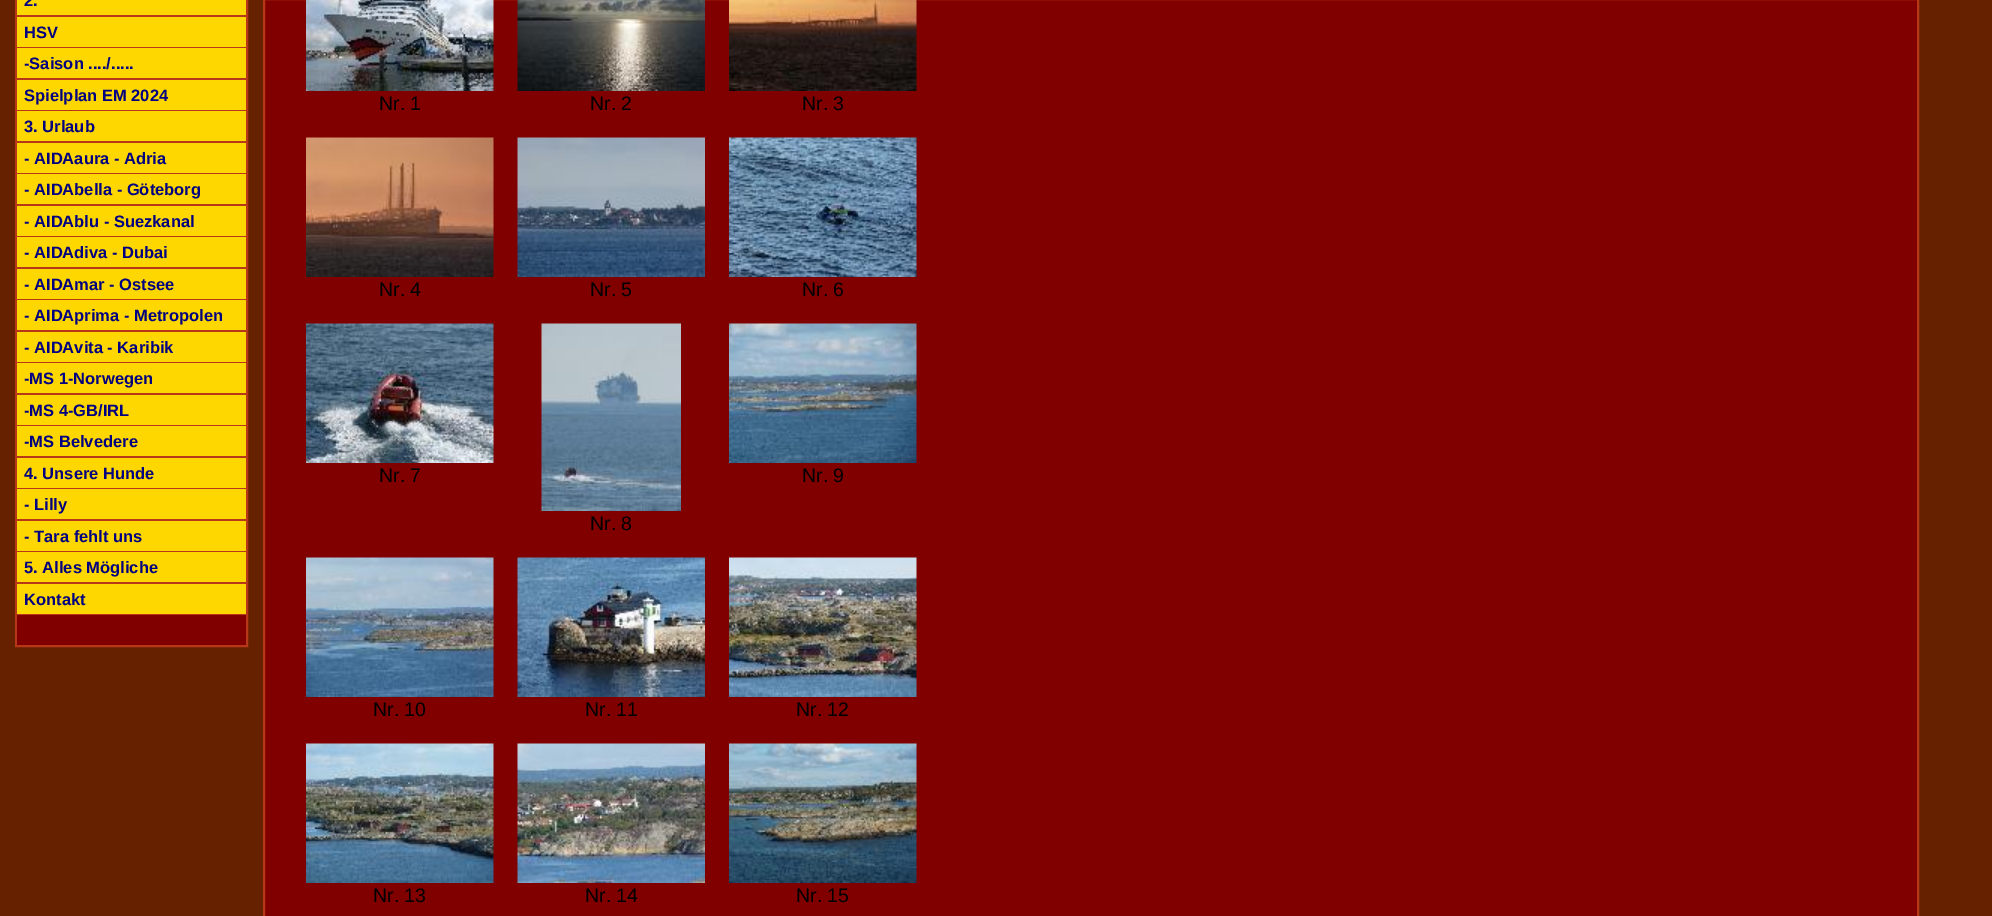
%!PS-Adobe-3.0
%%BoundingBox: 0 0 1992 916
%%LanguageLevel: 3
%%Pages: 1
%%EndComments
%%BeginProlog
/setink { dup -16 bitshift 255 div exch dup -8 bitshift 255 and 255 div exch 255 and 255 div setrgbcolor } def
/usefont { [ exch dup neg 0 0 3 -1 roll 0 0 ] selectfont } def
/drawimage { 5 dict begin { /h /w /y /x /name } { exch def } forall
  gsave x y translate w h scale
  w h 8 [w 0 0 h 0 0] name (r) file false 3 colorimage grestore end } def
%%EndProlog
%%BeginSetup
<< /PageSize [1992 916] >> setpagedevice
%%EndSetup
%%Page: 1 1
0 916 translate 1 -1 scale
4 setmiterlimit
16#662100 setink
0 0 1992 916 rectfill
16#B63818 setink
2 setlinewidth
16 -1 231 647 rectstroke
16#FFD700 setink
17 0 229 15 rectfill
16#B63818 setink
17 15 229 2 rectfill
/LiberationSans-Bold 16.5 usefont
16#000080 setink
24 6 moveto (2.) show
16#FFD700 setink
17 17 229 30 rectfill
16#B63818 setink
17 47 229 1 rectfill
16#000080 setink
24 38 moveto (HSV) show
16#FFD700 setink
17 48 229 30 rectfill
16#B63818 setink
17 78 229 2 rectfill
16#000080 setink
24 69 moveto (-Saison ..../.....) show
16#FFD700 setink
17 80 229 30 rectfill
16#B63818 setink
17 110 229 1 rectfill
16#000080 setink
24 101 moveto (Spielplan EM 2024) show
16#FFD700 setink
17 111 229 30 rectfill
16#B63818 setink
17 141 229 2 rectfill
16#000080 setink
24 132 moveto (3. Urlaub) show
16#FFD700 setink
17 143 229 30 rectfill
16#B63818 setink
17 173 229 1 rectfill
16#000080 setink
24 164 moveto (- AIDAaura - Adria) show
16#FFD700 setink
17 174 229 30 rectfill
16#B63818 setink
17 204 229 2 rectfill
16#000080 setink
24 195 moveto (- AIDAbella - Göteborg) show
16#FFD700 setink
17 206 229 30 rectfill
16#B63818 setink
17 236 229 1 rectfill
16#000080 setink
24 227 moveto (- AIDAblu - Suezkanal) show
16#FFD700 setink
17 237 229 30 rectfill
16#B63818 setink
17 267 229 2 rectfill
16#000080 setink
24 258 moveto (- AIDAdiva - Dubai) show
16#FFD700 setink
17 269 229 30 rectfill
16#B63818 setink
17 299 229 1 rectfill
16#000080 setink
24 290 moveto (- AIDAmar - Ostsee) show
16#FFD700 setink
17 300 229 30 rectfill
16#B63818 setink
17 330 229 2 rectfill
16#000080 setink
24 321 moveto (- AIDAprima - Metropolen) show
16#FFD700 setink
17 332 229 30 rectfill
16#B63818 setink
17 362 229 1 rectfill
16#000080 setink
24 353 moveto (- AIDAvita - Karibik) show
16#FFD700 setink
17 363 229 30 rectfill
16#B63818 setink
17 393 229 2 rectfill
16#000080 setink
24 384 moveto (-MS 1-Norwegen) show
16#FFD700 setink
17 395 229 30 rectfill
16#B63818 setink
17 425 229 1 rectfill
16#000080 setink
24 416 moveto (-MS 4-GB/IRL) show
16#FFD700 setink
17 426 229 30 rectfill
16#B63818 setink
17 456 229 2 rectfill
16#000080 setink
24 447 moveto (-MS Belvedere) show
16#FFD700 setink
17 458 229 30 rectfill
16#B63818 setink
17 488 229 1 rectfill
16#000080 setink
24 479 moveto (4. Unsere Hunde) show
16#FFD700 setink
17 489 229 30 rectfill
16#B63818 setink
17 519 229 2 rectfill
16#000080 setink
24 510 moveto (- Lilly) show
16#FFD700 setink
17 521 229 30 rectfill
16#B63818 setink
17 551 229 1 rectfill
16#000080 setink
24 542 moveto (- Tara fehlt uns) show
16#FFD700 setink
17 552 229 30 rectfill
16#B63818 setink
17 582 229 2 rectfill
16#000080 setink
24 573 moveto (5. Alles Mögliche) show
16#FFD700 setink
17 584 229 30 rectfill
16#B63818 setink
17 614 229 1 rectfill
16#000080 setink
24 605 moveto (Kontakt) show
16#800000 setink
17 615 229 30 rectfill
264 -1 moveto 1918 -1 lineto 1918 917 lineto 264 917 lineto closepath gsave fill grestore
16#B63818 setink
stroke
(img1.raw) 306 0 188 91 drawimage
/LiberationSans-Regular 19.5 usefont
16#000000 setink
379 110 moveto (Nr. 1) show
(img2.raw) 517 0 188 91 drawimage
590 110 moveto (Nr. 2) show
(img3.raw) 729 0 188 91 drawimage
802 110 moveto (Nr. 3) show
(img4.raw) 306 137 188 140 drawimage
379 296 moveto (Nr. 4) show
(img5.raw) 517 137 188 140 drawimage
590 296 moveto (Nr. 5) show
(img6.raw) 729 137 188 140 drawimage
802 296 moveto (Nr. 6) show
(img7.raw) 306 323 188 140 drawimage
379 482 moveto (Nr. 7) show
(img8.raw) 729 323 188 140 drawimage
802 482 moveto (Nr. 9) show
(img9.raw) 541 323 140 188 drawimage
590 530 moveto (Nr. 8) show
(img10.raw) 306 557 188 140 drawimage
373 716 moveto (Nr. 10) show
(img11.raw) 517 557 188 140 drawimage
585 716 moveto (Nr. 11) show
(img12.raw) 729 557 188 140 drawimage
796 716 moveto (Nr. 12) show
(img13.raw) 306 743 188 140 drawimage
373 902 moveto (Nr. 13) show
(img14.raw) 517 743 188 140 drawimage
585 902 moveto (Nr. 14) show
(img15.raw) 729 743 188 140 drawimage
796 902 moveto (Nr. 15) show
showpage
%%EOF
